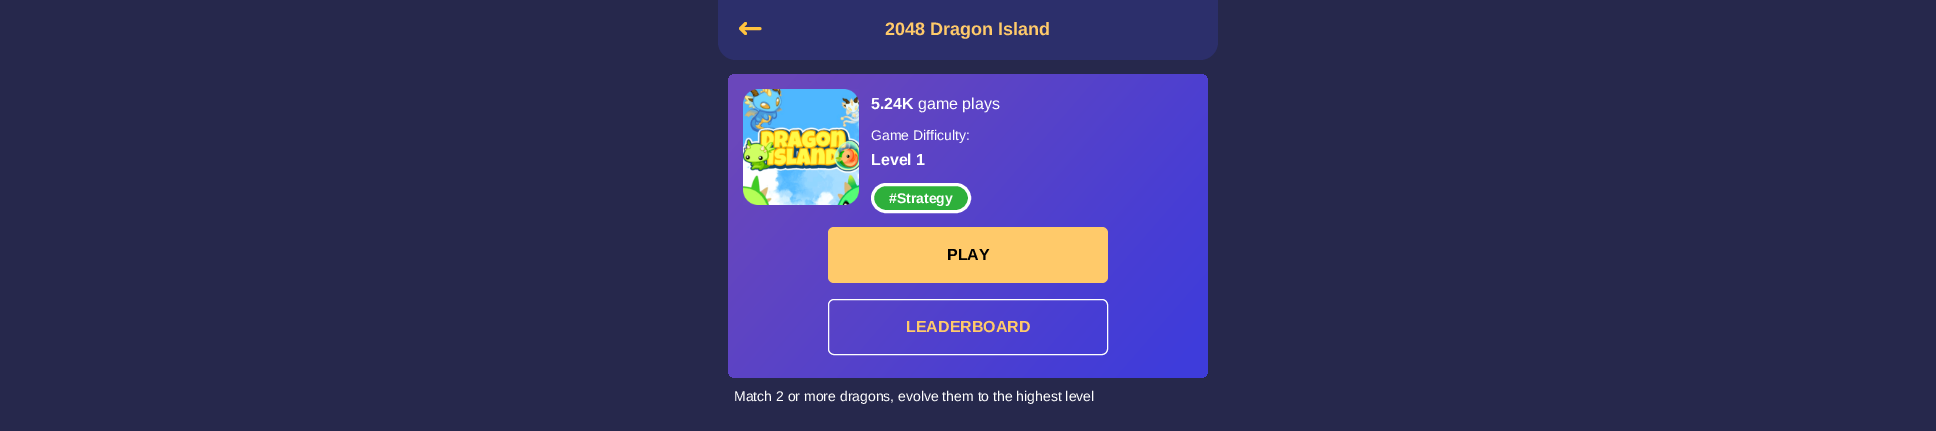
%!PS-Adobe-3.0
%%BoundingBox: 0 0 1936 431
%%LanguageLevel: 3
%%Pages: 1
%%EndComments
%%BeginProlog
/setink { dup -16 bitshift 255 div exch dup -8 bitshift 255 and 255 div exch 255 and 255 div setrgbcolor } def
/usefont { [ exch dup neg 0 0 3 -1 roll 0 0 ] selectfont } def
/rrect { 5 dict begin { /r /h /w /y /x } { exch def } forall
  x r add y moveto x w add y 2 copy h add r arct x w add y h add x 1 index r arct
  x y h add x y r arct x y 2 copy exch w add exch r arct closepath end } def
/drawimage { 5 dict begin { /h /w /y /x /name } { exch def } forall
  gsave x y translate w h scale
  w h 8 [w 0 0 h 0 0] name (r) file false 3 colorimage grestore end } def
%%EndProlog
%%BeginSetup
<< /PageSize [1936 431] >> setpagedevice
%%EndSetup
%%Page: 1 1
0 431 translate 1 -1 scale
4 setmiterlimit
16#26284C setink
0 0 1936 431 rectfill
16#2C2F6B setink
718 0 moveto 1218 0 lineto 1218 42 lineto 1218 52 1210 60 1200 60 curveto 736 60 lineto 726 60 718 52 718 42 curveto closepath fill
16#FFC33E setink
3 setlinewidth
1 setlinecap
1 setlinejoin
745.5 33.5 moveto 740.5 28.5 lineto 745.5 23.5 lineto 741 28.5 moveto 760 28.5 lineto stroke
/LiberationSans-Bold 18 usefont
16#FFCA6A setink
885 35 moveto (2048 Dragon Island) show
gsave 728 74 480 304 8 rrect clip newpath
<< /ShadingType 2 /ColorSpace /DeviceRGB /Coords [756 42 1180 410] /Extend [true true] /Function << /FunctionType 3 /Domain [0 1] /Functions [<< /FunctionType 2 /Domain [0 1] /C0 [0.416 0.278 0.733] /C1 [0.416 0.278 0.733] /N 1 >> << /FunctionType 2 /Domain [0 1] /C0 [0.416 0.278 0.733] /C1 [0.243 0.235 0.859] /N 1 >> << /FunctionType 2 /Domain [0 1] /C0 [0.243 0.235 0.859] /C1 [0.243 0.235 0.859] /N 1 >>] /Bounds [0.09 0.95] /Encode [0 1 0 1 0 1] >> >> shfill grestore
(img1.raw) 743 89 116 116 drawimage
/LiberationSans-Bold 16 usefont
16#FFFFFF setink
871 109 moveto (5.24K) show
/LiberationSans-Regular 16 usefont
918 109 moveto (game plays) show
/LiberationSans-Regular 14 usefont
871 140 moveto (Game Difficulty:) show
/LiberationSans-Bold 16 usefont
871 165 moveto (Level 1) show
16#2EB03B setink
872.5 184.5 97 27 13.5 rrect gsave fill grestore
16#FFFFFF setink
0 setlinecap
0 setlinejoin
stroke
/LiberationSans-Bold 14 usefont
889 203 moveto (#Strategy) show
16#FFCA6A setink
828 227 280 56 6 rrect fill
/LiberationSans-Bold 16 usefont
16#000000 setink
947 260 moveto (PLAY) show
16#FFFFFF setink
1 setlinewidth
828.5 299.5 279 55 5.5 rrect stroke
16#FFCA6A setink
906 332 moveto (LEADERBOARD) show
/LiberationSans-Regular 14 usefont
16#FFFFFF setink
734 401 moveto (Match 2 or more dragons, evolve them to the highest level) show
showpage
%%EOF
